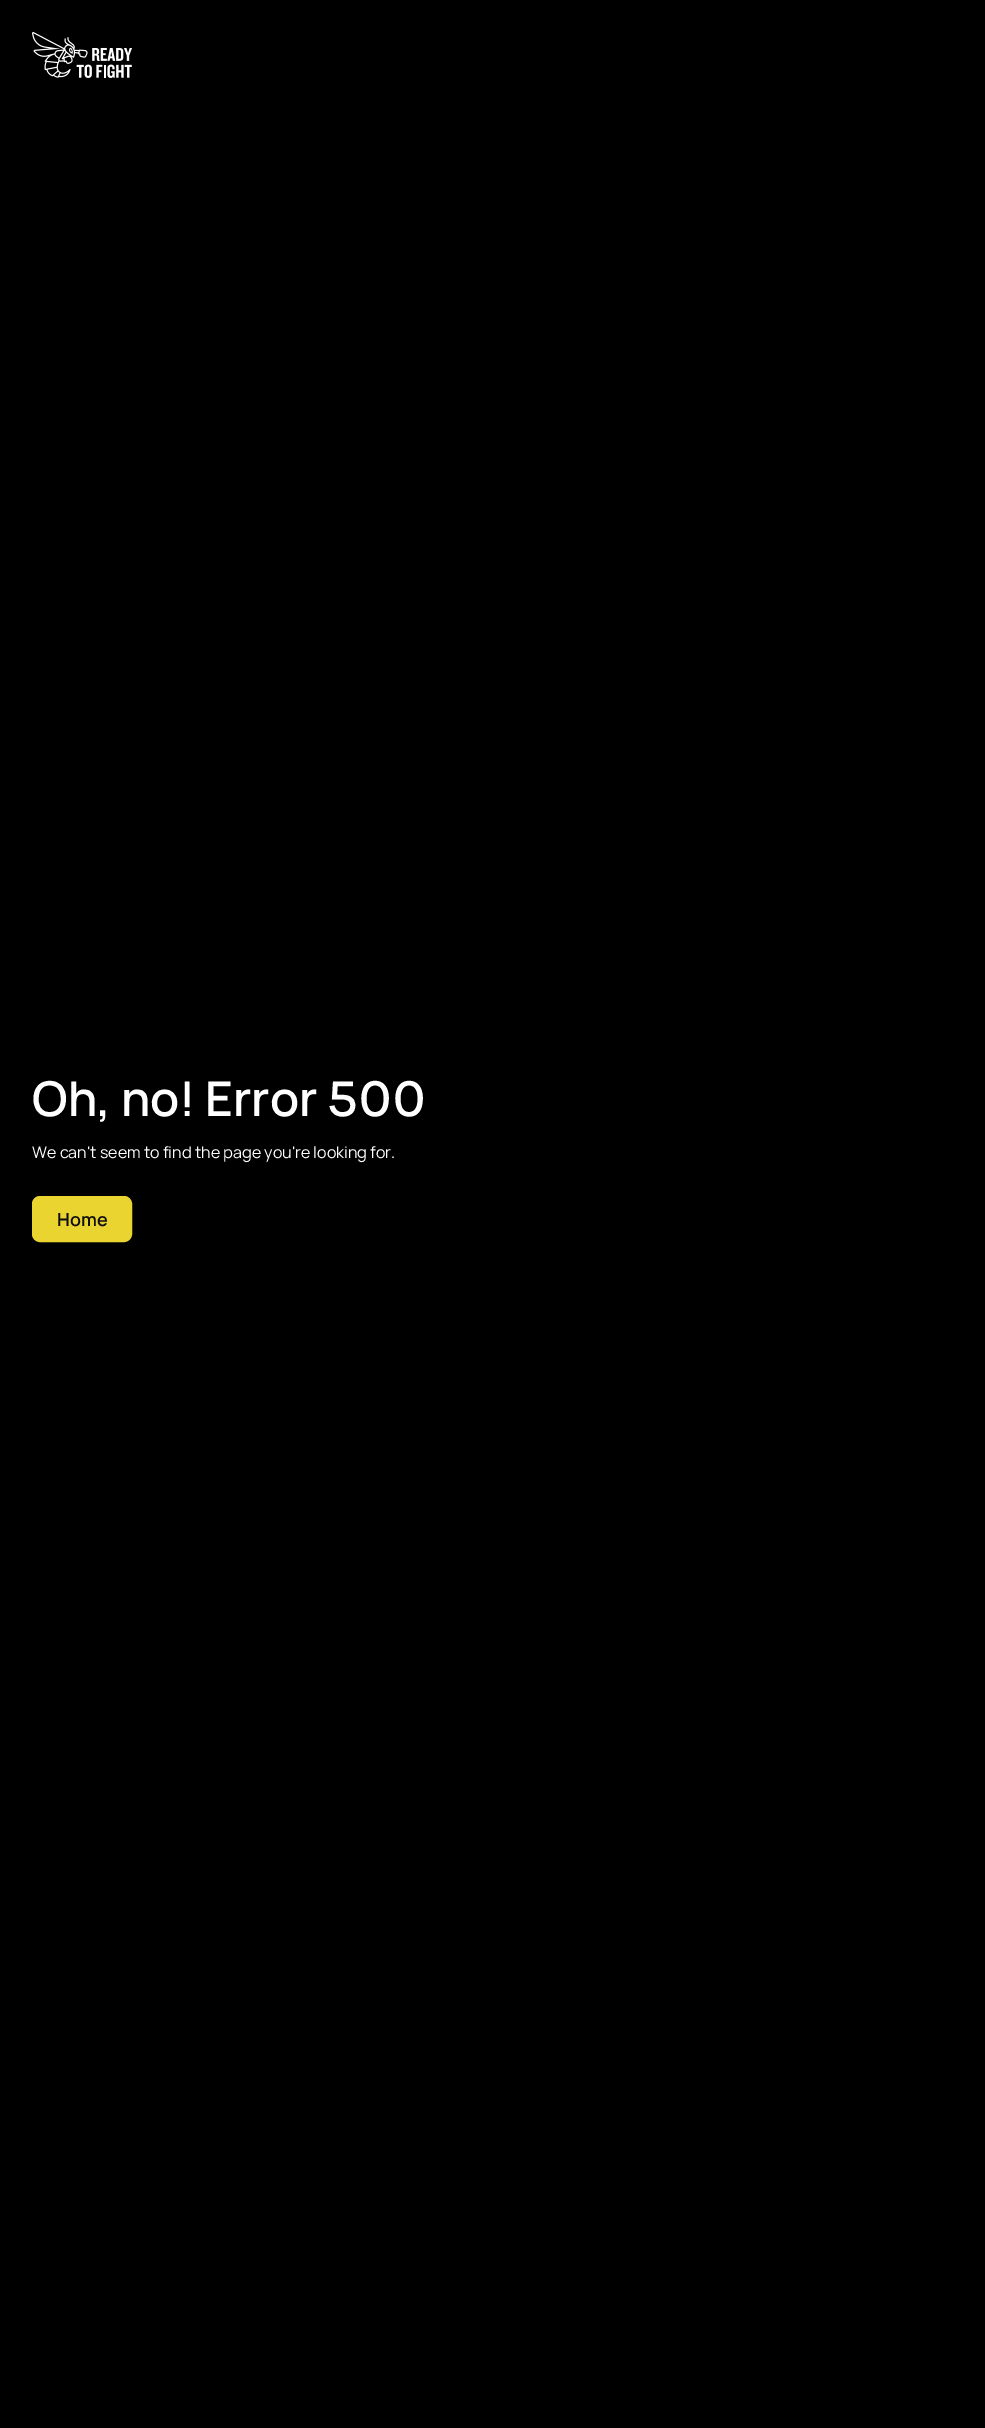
%!PS-Adobe-3.0
%%BoundingBox: 0 0 985 2428
%%LanguageLevel: 3
%%Pages: 1
%%EndComments
%%BeginProlog
/setink { dup -16 bitshift 255 div exch dup -8 bitshift 255 and 255 div exch 255 and 255 div setrgbcolor } def
/usefont { [ exch dup neg 0 0 3 -1 roll 0 0 ] selectfont } def
/rrect { 5 dict begin { /r /h /w /y /x } { exch def } forall
  x r add y moveto x w add y 2 copy h add r arct x w add y h add x 1 index r arct
  x y h add x y r arct x y 2 copy exch w add exch r arct closepath end } def
/drawimage { 5 dict begin { /h /w /y /x /name } { exch def } forall
  gsave x y translate w h scale
  w h 8 [w 0 0 h 0 0] name (r) file false 3 colorimage grestore end } def
%%EndProlog
%%BeginSetup
<< /PageSize [985 2428] >> setpagedevice
%%EndSetup
%%Page: 1 1
0 2428 translate 1 -1 scale
4 setmiterlimit
16#000000 setink
0 0 985 2428 rectfill
(img1.raw) 32 32 100 46 drawimage
/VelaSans-SemiBold 48 usefont
16#FFFFFF setink
32 1116 moveto (Oh, no! Error 500) show
/VelaSans-Regular 16 usefont
32 1158 moveto (We can't seem to find the page you're looking for.) show
16#EAD430 setink
32.5 1196.5 99 45 7.5 rrect gsave fill grestore
stroke
/VelaSans-SemiBold 18 usefont
16#0F0F0F setink
57 1226 moveto (Home) show
showpage
%%EOF
